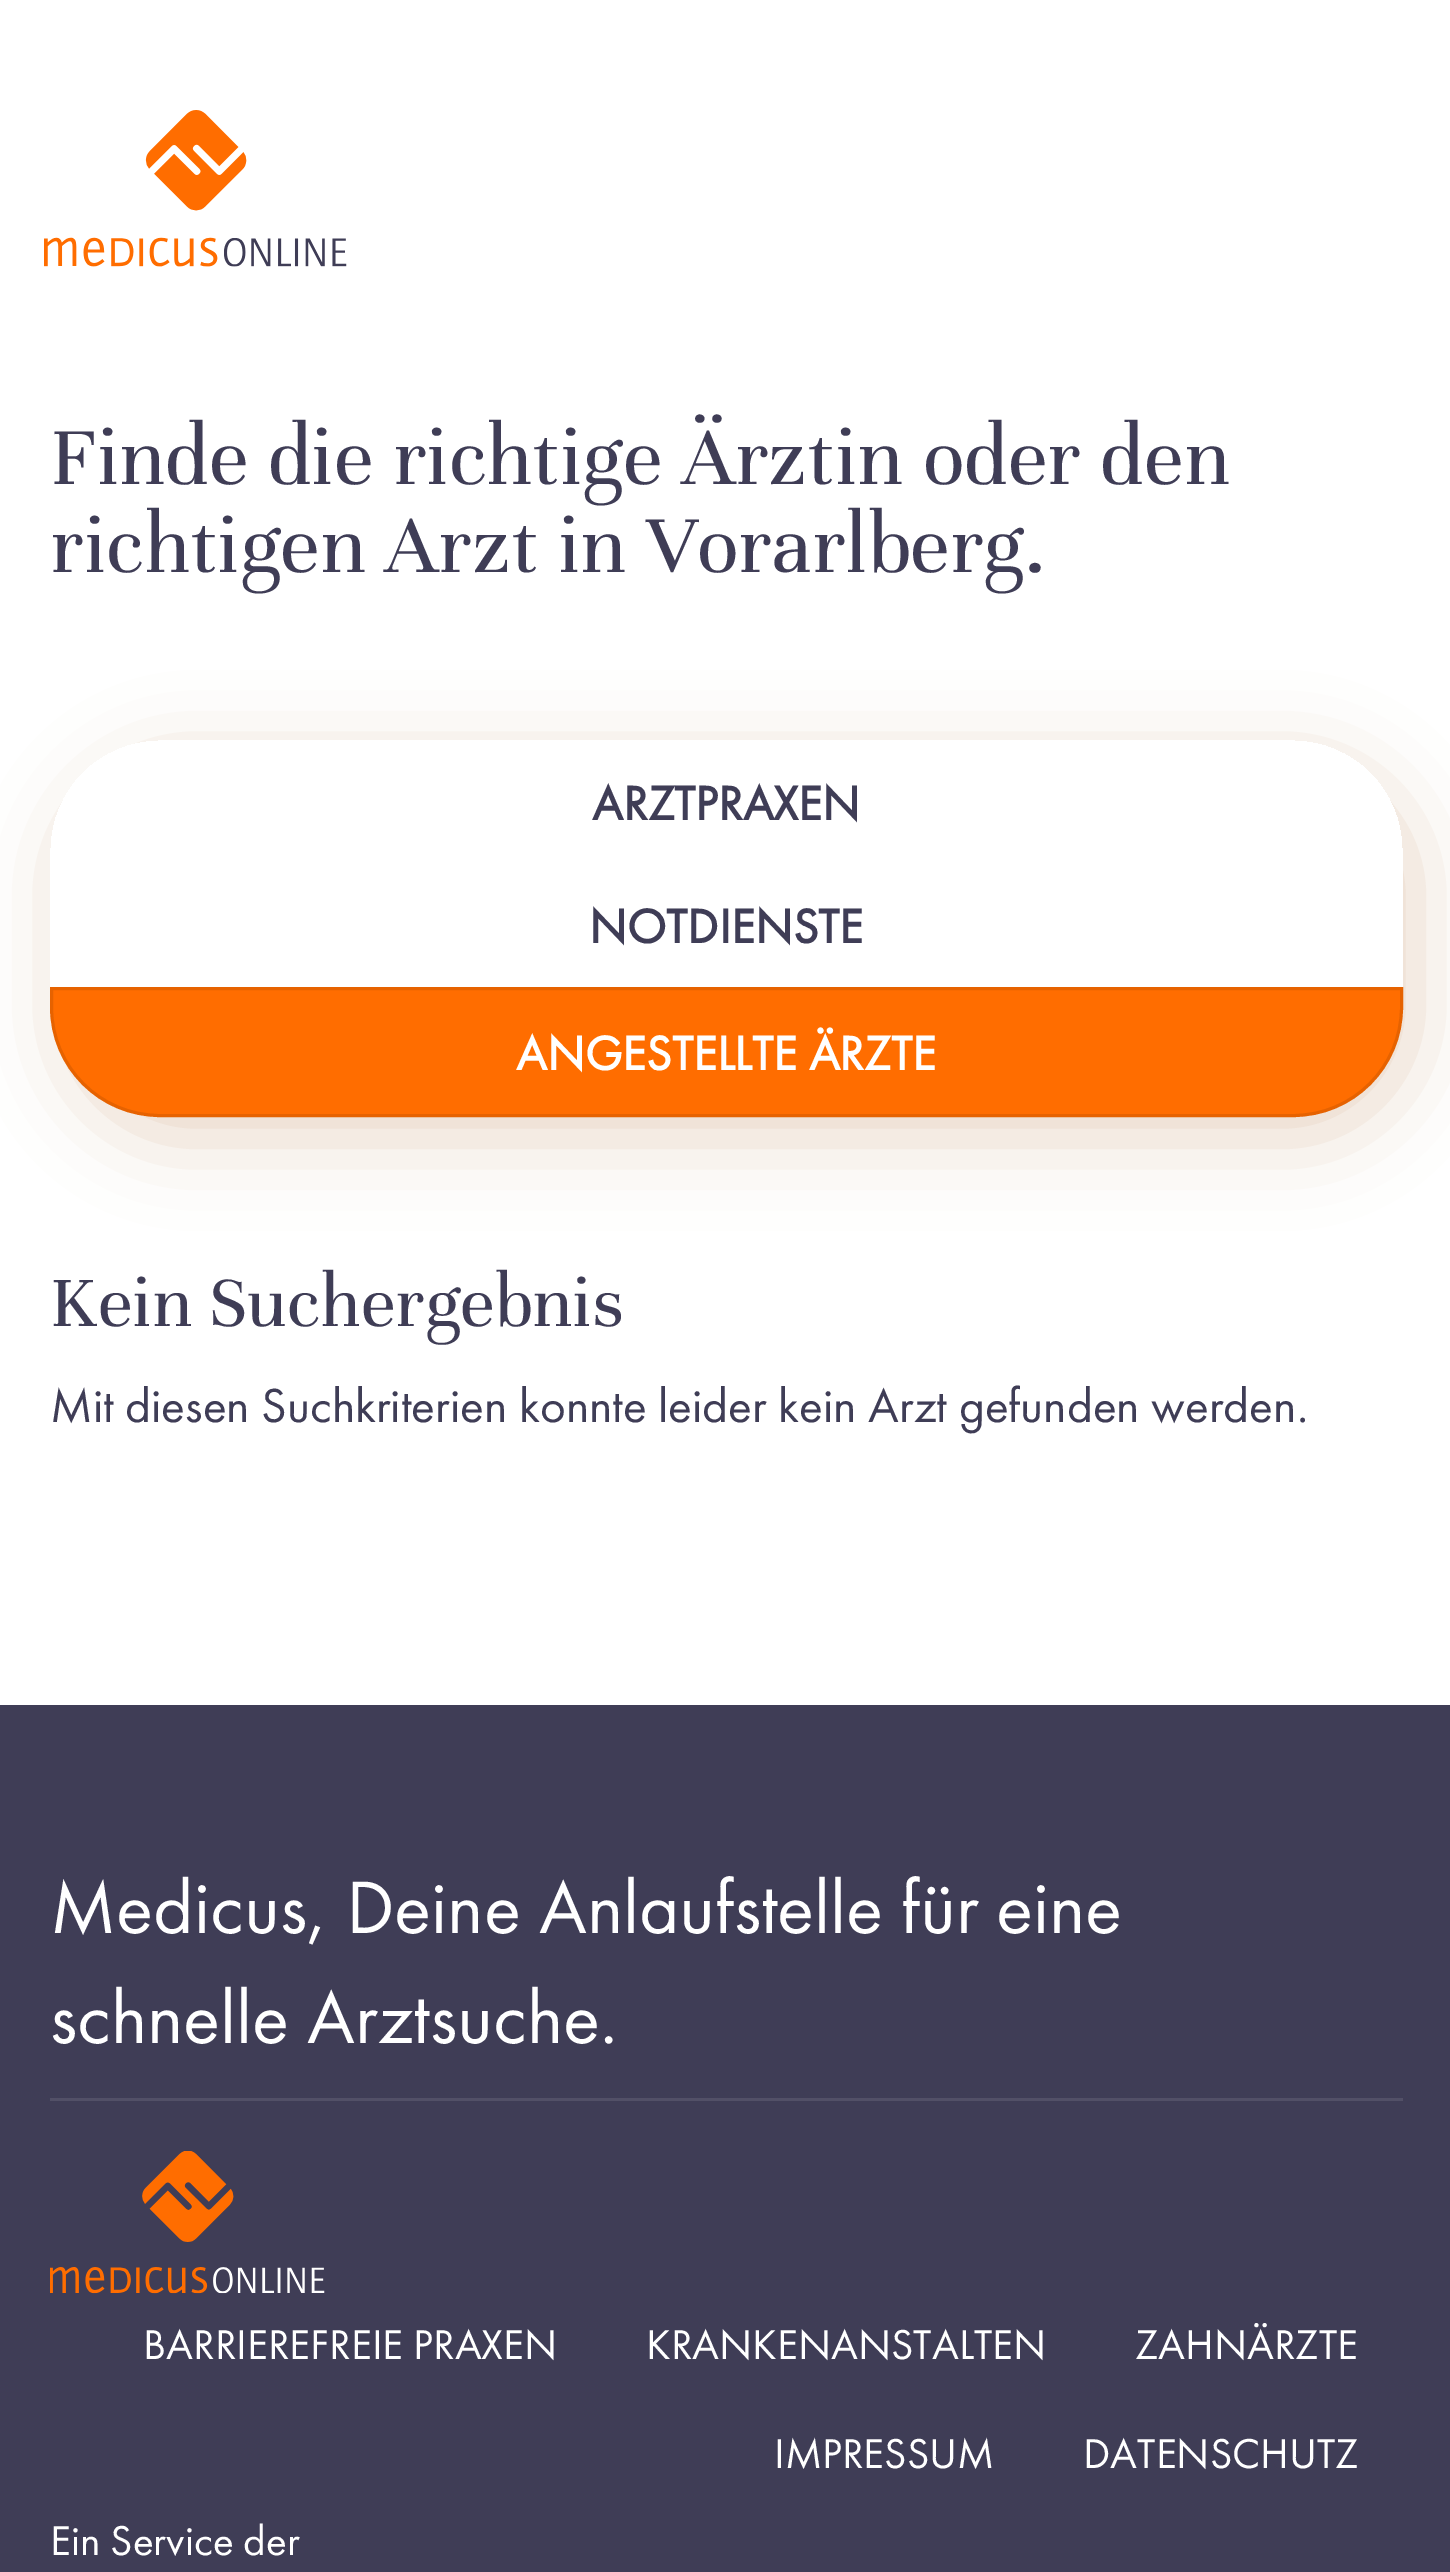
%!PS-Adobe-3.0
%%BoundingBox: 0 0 1450 2572
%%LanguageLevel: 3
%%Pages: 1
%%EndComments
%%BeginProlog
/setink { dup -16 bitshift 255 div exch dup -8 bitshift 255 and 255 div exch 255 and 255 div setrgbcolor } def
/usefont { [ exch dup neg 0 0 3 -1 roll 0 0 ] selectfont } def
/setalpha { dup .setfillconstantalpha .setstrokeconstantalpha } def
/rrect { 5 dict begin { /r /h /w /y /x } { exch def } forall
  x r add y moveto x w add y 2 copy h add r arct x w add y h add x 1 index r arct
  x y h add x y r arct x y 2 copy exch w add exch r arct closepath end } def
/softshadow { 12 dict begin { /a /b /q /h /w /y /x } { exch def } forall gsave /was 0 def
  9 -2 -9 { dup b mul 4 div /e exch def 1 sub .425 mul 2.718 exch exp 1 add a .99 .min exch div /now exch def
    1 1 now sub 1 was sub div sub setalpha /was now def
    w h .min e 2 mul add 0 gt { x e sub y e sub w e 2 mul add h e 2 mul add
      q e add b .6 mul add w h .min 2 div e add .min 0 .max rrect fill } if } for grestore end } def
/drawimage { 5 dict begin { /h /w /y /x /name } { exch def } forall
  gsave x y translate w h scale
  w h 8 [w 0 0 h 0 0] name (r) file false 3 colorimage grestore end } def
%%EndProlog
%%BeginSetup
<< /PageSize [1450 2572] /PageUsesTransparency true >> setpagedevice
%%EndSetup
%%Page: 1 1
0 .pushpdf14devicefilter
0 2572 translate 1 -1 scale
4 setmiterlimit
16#FFFFFF setink
0 0 1450 2572 rectfill
(img1.raw) 44 110 303 157 drawimage
/Unna-Regular 88 usefont
16#3F3D56 setink
50 484 moveto (Finde die richtige Ärztin oder den) show
50 572 moveto (richtigen Arzt in Vorarlberg.) show
gsave
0 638 moveto 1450 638 lineto 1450 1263 lineto 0 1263 lineto closepath 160 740 moveto 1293 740 lineto 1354 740 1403 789 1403 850 curveto 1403 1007 lineto 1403 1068 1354 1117 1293 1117 curveto 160 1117 lineto 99 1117 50 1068 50 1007 curveto 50 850 lineto 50 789 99 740 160 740 curveto closepath eoclip newpath
16#E9D6C6 setink
63 762 1353 377 110 41 1 softshadow
grestore
/FuturaPT-Bold 49.5 usefont
592 820 moveto (ARZTPRAXEN) show
589 943 moveto (NOTDIENSTE) show
16#FF6D00 setink
51.5 988.5 moveto 1401.5 988.5 lineto 1401.5 1007 lineto 1401.5 1067 1353 1115.5 1293 1115.5 curveto 160 1115.5 lineto 100 1115.5 51.5 1067 51.5 1007 curveto closepath gsave fill grestore
16#E66200 setink
3 setlinewidth
stroke
16#FFFFFF setink
516 1070 moveto (ANGESTELLTE ÄRZTE) show
/Unna-Regular 77 usefont
16#3F3D56 setink
50 1326 moveto (Kein Suchergebnis) show
/FuturaPT-Regular 49.5 usefont
50 1422 moveto (Mit diesen Suchkriterien konnte leider kein Arzt gefunden werden.) show
0 1705 1450 867 rectfill
/FuturaPT-Regular 77 usefont
16#FFFFFF setink
50 1933 moveto (Medicus, Deine Anlaufstelle für eine) show
50 2043 moveto (schnelle Arztsuche.) show
16#525067 setink
50 2098 1353 3 rectfill
(img2.raw) 50 2151 275 143 drawimage
/FuturaPT-Regular 43.25 usefont
16#FFFFFF setink
[
    [(BARRIEREFREIE PRAXEN) 143 2359]
    [(KRANKENANSTALTEN) 646 2359]
    [(ZAHNÄRZTE) 1135 2359]
    [(IMPRESSUM) 774 2468]
    [(DATENSCHUTZ) 1083 2468]
    [(Ein Service der) 50 2555]
] { aload pop moveto show } forall
.poppdf14devicefilter showpage
%%EOF
